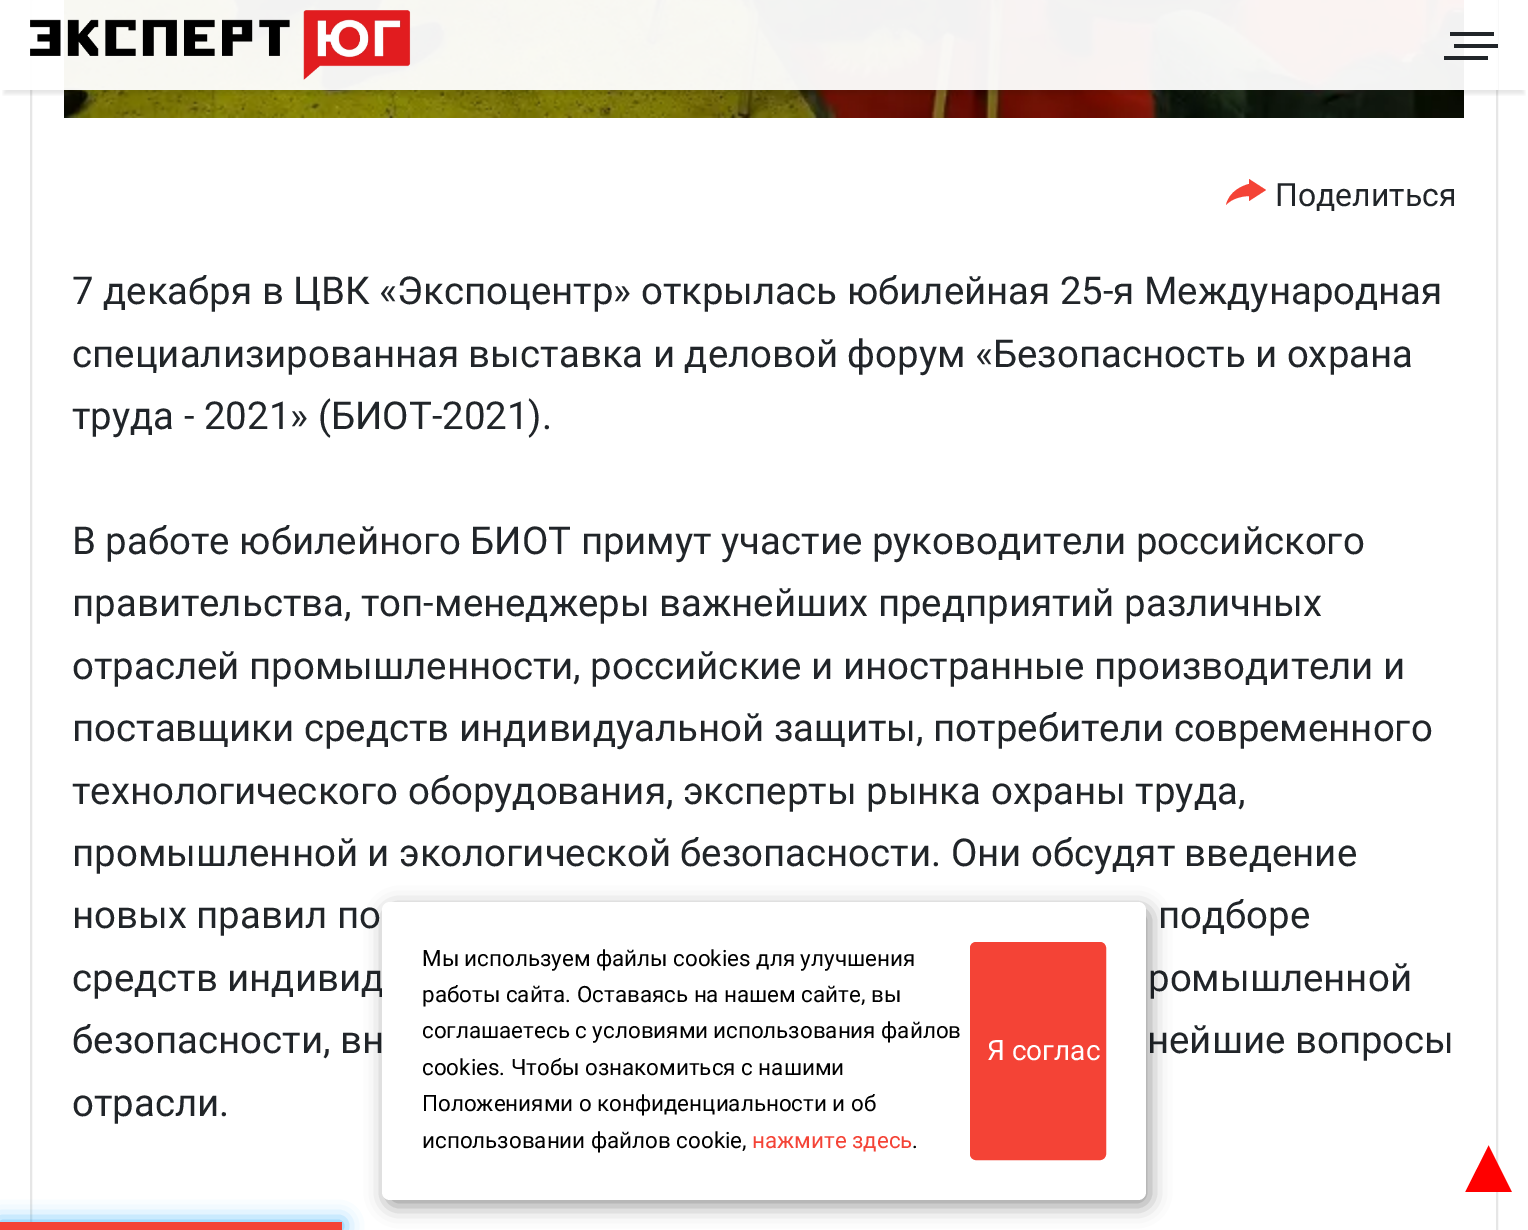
%!PS-Adobe-3.0
%%BoundingBox: 0 0 1528 1230
%%LanguageLevel: 3
%%Pages: 1
%%EndComments
%%BeginProlog
/setink { dup -16 bitshift 255 div exch dup -8 bitshift 255 and 255 div exch 255 and 255 div setrgbcolor } def
/usefont { [ exch dup neg 0 0 3 -1 roll 0 0 ] selectfont } def
/setalpha { dup .setfillconstantalpha .setstrokeconstantalpha } def
/rrect { 5 dict begin { /r /h /w /y /x } { exch def } forall
  x r add y moveto x w add y 2 copy h add r arct x w add y h add x 1 index r arct
  x y h add x y r arct x y 2 copy exch w add exch r arct closepath end } def
/softshadow { 12 dict begin { /a /b /q /h /w /y /x } { exch def } forall gsave /was 0 def
  9 -2 -9 { dup b mul 4 div /e exch def 1 sub .425 mul 2.718 exch exp 1 add a .99 .min exch div /now exch def
    1 1 now sub 1 was sub div sub setalpha /was now def
    w h .min e 2 mul add 0 gt { x e sub y e sub w e 2 mul add h e 2 mul add
      q e add b .6 mul add w h .min 2 div e add .min 0 .max rrect fill } if } for grestore end } def
/drawimage { 5 dict begin { /h /w /y /x /name } { exch def } forall
  gsave x y translate w h scale
  w h 8 [w 0 0 h 0 0] name (r) file false 3 colorimage grestore end } def
%%EndProlog
%%BeginSetup
<< /PageSize [1528 1230] /PageUsesTransparency true >> setpagedevice
%%EndSetup
%%Page: 1 1
0 .pushpdf14devicefilter
0 1230 translate 1 -1 scale
4 setmiterlimit
16#FFFFFF setink
0 0 1528 1230 rectfill
16#E6E6E6 setink
2 setlinewidth
31 -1 1466 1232 rectstroke
(img2.raw) 64 0 1400 118 drawimage
gsave
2 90 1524 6 rectclip
16#000000 setink
4 12 1520 82 0 2 0.1 softshadow
grestore
0.95 setalpha
16#FFFFFF setink
30 0 1468 90 rectfill
1 setalpha
(img1.raw) 30 10 381 70 drawimage
[
    [1454 44 44 4 16#212529]
    [1450 32 44 4 16#212529]
    [1444 56 44 4 16#212529]
] { aload pop setink rectfill } forall
/Roboto-Regular 32 usefont
1275 206 moveto (Поделиться) show
16#F44336 setink
1249 201 moveto 1266 190 lineto 1249 179 lineto 1249 184 lineto 1249 184 1230 188 1226 205 curveto 1234 196 1249 196 1249 196 curveto closepath fill
/Roboto-Regular 38.4 usefont
16#212529 setink
[
    [(7 декабря в ЦВК «Экспоцентр» открылась юбилейная 25-я Международная) 72 304]
    [(специализированная выставка и деловой форум «Безопасность и охрана) 72 367]
    [(труда - 2021» \(БИОТ-2021\).) 72 429]
    [(В работе юбилейного БИОТ примут участие руководители российского) 72 554]
    [(правительства, топ-менеджеры важнейших предприятий различных) 72 616]
    [(отраслей промышленности, российские и иностранные производители и) 72 679]
    [(поставщики средств индивидуальной защиты, потребители современного) 72 741]
    [(технологического оборудования, эксперты рынка охраны труда,) 72 804]
    [(промышленной и экологической безопасности. Они обсудят введение) 72 866]
    [(новых правил по) 72 928]
    [(подборе) 1158 928]
    [(средств индивид) 72 991]
    [(ромышленной) 1148 991]
    [(безопасности, вн) 72 1053]
    [(нейшие вопросы) 1147 1053]
    [(отрасли.) 72 1116]
] { aload pop moveto show } forall
16#000000 setink
386 908 764 298 8 10 0.4 softshadow
16#FFFFFF setink
382 902 764 298 8 rrect fill
/Roboto-Regular 22.4 usefont
16#000000 setink
[
    [(Мы используем файлы cookies для улучшения) 422 966]
    [(работы сайта. Оставаясь на нашем сайте, вы) 422 1002]
    [(соглашаетесь с условиями) 422 1038]
    [(использования файлов) 713 1038]
    [(cookies. Чтобы ознакомиться с нашими) 422 1075]
    [(Положениями о конфиденциальности и об) 422 1111]
    [(использовании файлов cookie,) 422 1148]
] { aload pop moveto show } forall
16#F44336 setink
752 1148 moveto (нажмите здесь) show
16#000000 setink
912 1148 moveto (.) show
16#F44336 setink
971 943 134 216 5 rrect gsave fill grestore
stroke
/Roboto-Regular 28 usefont
16#FFFFFF setink
987 1060 moveto (Я соглас) show
/LiberationSans-Regular 80 usefont
16#FF0000 setink
1449 1192 moveto (▲) show
16#0098F7 setink
0 1222 342 8 0 10 0.7 softshadow
16#F44336 setink
0 1222 342 8 rectfill
.poppdf14devicefilter showpage
%%EOF
